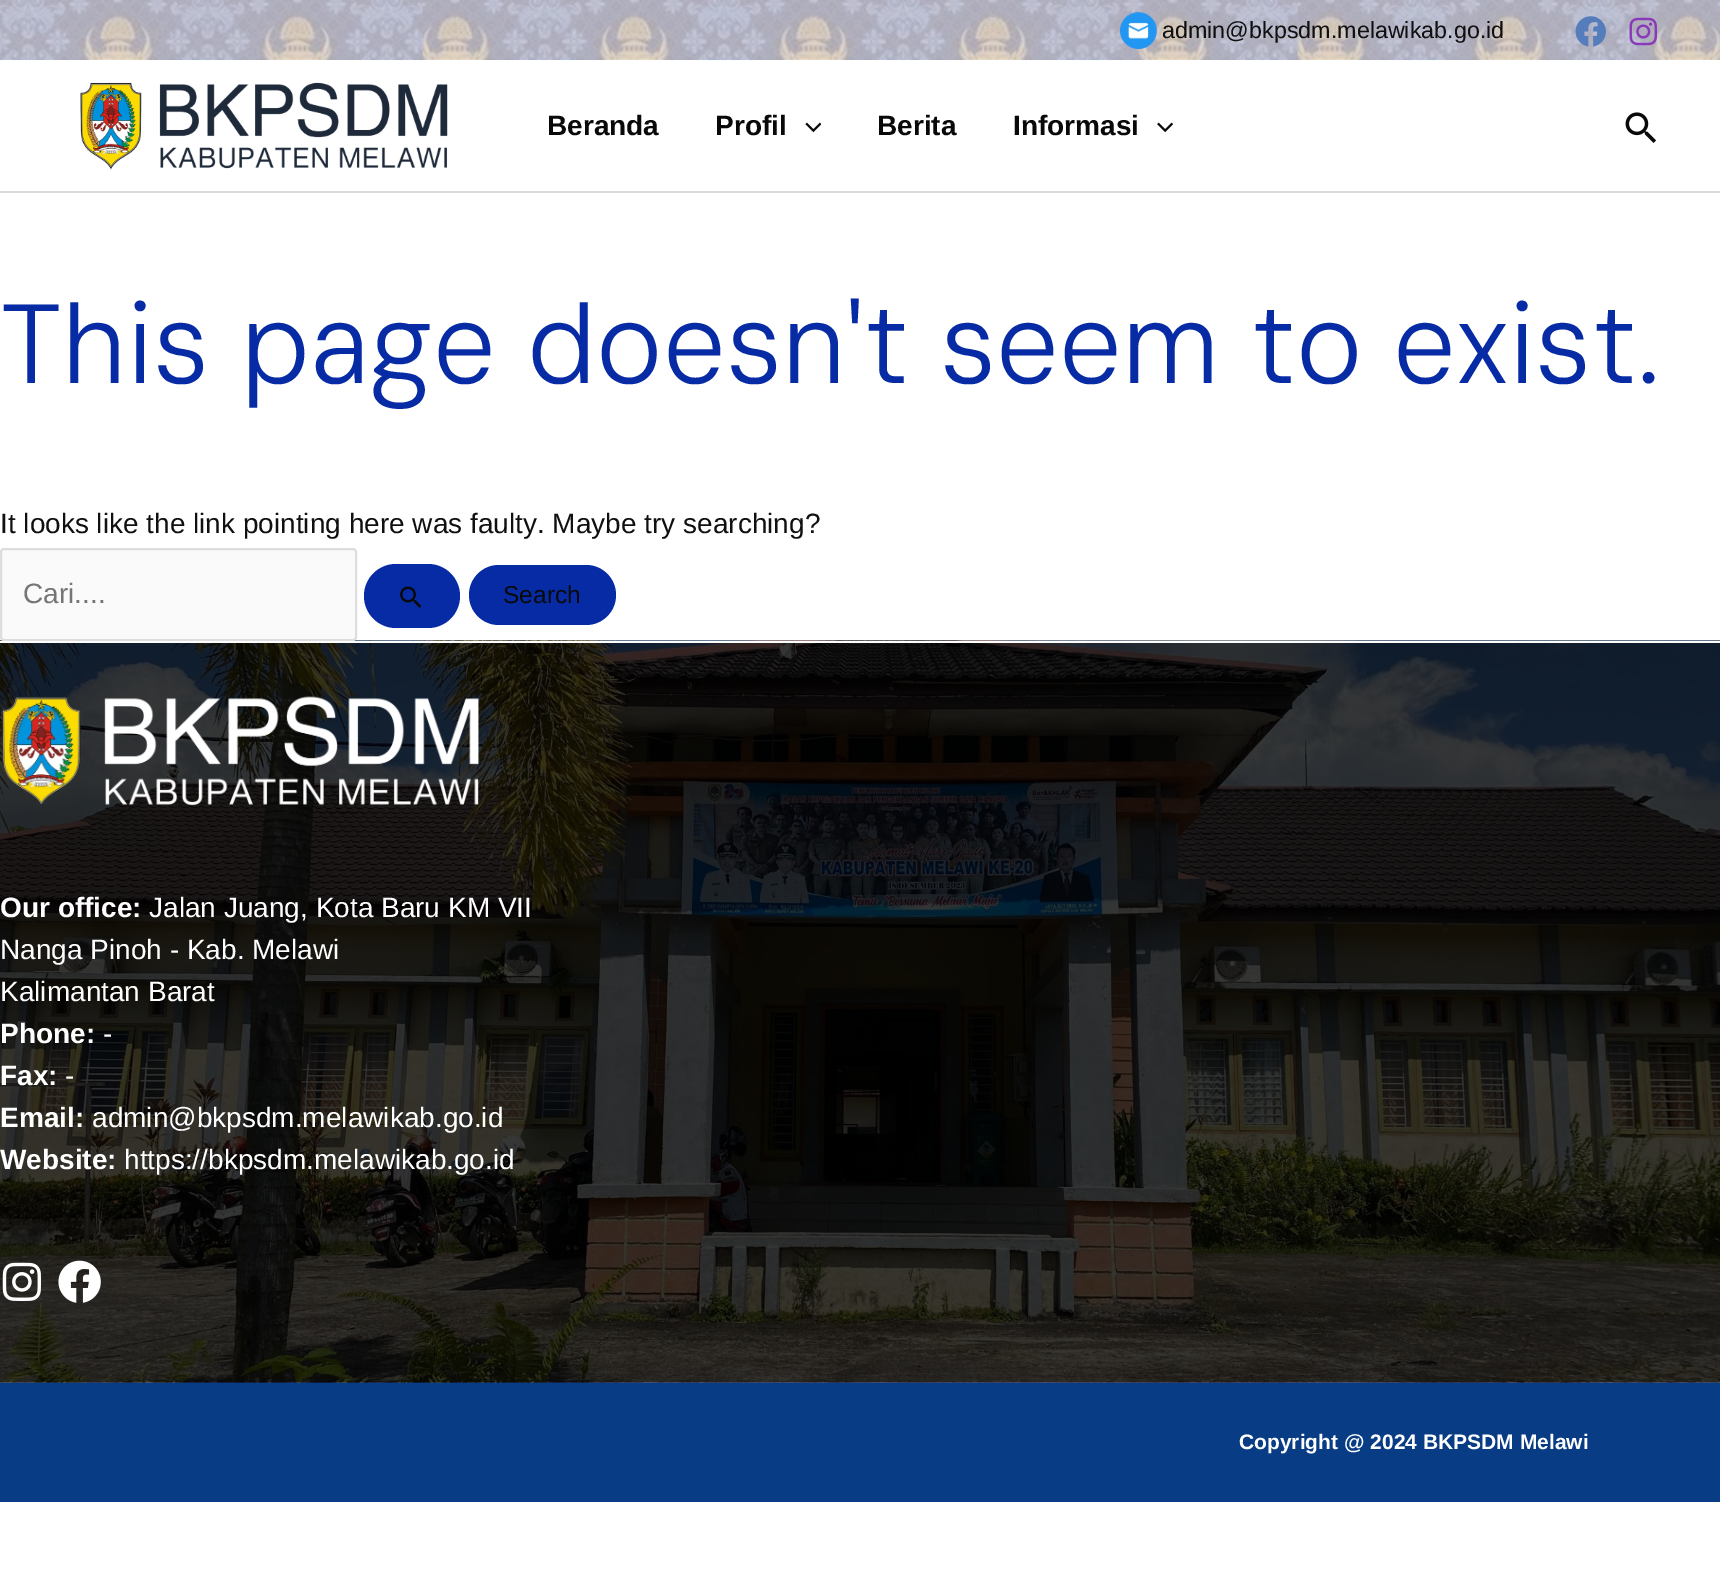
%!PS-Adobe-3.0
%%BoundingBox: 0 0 1720 1589
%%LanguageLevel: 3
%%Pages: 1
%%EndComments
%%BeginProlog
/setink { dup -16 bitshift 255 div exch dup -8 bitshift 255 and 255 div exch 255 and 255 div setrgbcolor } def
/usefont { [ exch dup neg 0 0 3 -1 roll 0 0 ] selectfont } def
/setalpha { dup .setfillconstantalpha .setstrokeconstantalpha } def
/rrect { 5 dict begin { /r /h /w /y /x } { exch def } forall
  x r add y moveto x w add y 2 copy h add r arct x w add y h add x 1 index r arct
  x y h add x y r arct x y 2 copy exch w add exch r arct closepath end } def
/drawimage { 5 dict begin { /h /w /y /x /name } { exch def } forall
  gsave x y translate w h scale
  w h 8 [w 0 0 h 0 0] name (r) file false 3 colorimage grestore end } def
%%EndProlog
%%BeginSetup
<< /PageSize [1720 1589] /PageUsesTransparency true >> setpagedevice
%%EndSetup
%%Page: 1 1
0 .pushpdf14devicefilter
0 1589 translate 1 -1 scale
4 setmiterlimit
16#FFFFFF setink
0 0 1720 1589 rectfill
(img1.raw) 0 0 1720 60 drawimage
(img2.raw) 1120 12 37 37 drawimage
/LiberationSans-Regular 23.3 usefont
16#101010 setink
1162 38 moveto (admin@bkpsdm.melawikab.go.id) show
(img3.raw) 1575 16 31 31 drawimage
(img4.raw) 1629 17 29 29 drawimage
16#DBDBDB setink
0 191 1720 2 rectfill
(img5.raw) 80 82 368 88 drawimage
/LiberationSans-Bold 28 usefont
16#090909 setink
547 135 moveto (Beranda) show
715 135 moveto (Profil) show
(img6.raw) 805 122 16 11 drawimage
877 135 moveto (Berita) show
1013 135 moveto (Informasi) show
(img7.raw) 1157 122 16 11 drawimage
(img8.raw) 1625 112 31 31 drawimage
/DMSans-Light 112 usefont
16#062BA5 setink
0 383 moveto (This page doesn't seem to exist.) show
/LiberationSans-Regular 28 usefont
16#101010 setink
0 533 moveto (It looks like the link pointing here was faulty. Maybe try searching?) show
16#062BA5 setink
0 1382 1720 1 rectfill
(img10.raw) 0 640 1720 743 drawimage
16#FAFAFA setink
1 549 355 91 3 rrect gsave fill grestore
16#DDDDDD setink
2 setlinewidth
stroke
16#757575 setink
23 603 moveto (Cari....) show
16#062BA5 setink
364 564 96 64 32 rrect fill
(img9.raw) 400 586 22 22 drawimage
469 565 147 60 30 rrect fill
/LiberationSans-Regular 24.5 usefont
16#090909 setink
503 603 moveto (Search) show
0.99 setalpha
16#FFFFFF setink
0 641 1720 2 rectfill
1 setalpha
(img11.raw) 1 696 478 111 drawimage
/LiberationSans-Bold 28 usefont
0 917 moveto (Our office:) show
/LiberationSans-Regular 28 usefont
[
    [(Jalan Juang, Kota Baru KM VII) 149 917]
    [(Nanga Pinoh - Kab. Melawi) 0 959]
    [(Kalimantan Barat) 0 1001]
] { aload pop moveto show } forall
/LiberationSans-Bold 28 usefont
0 1043 moveto (Phone:) show
/LiberationSans-Regular 28 usefont
103 1043 moveto (-) show
/LiberationSans-Bold 28 usefont
0 1085 moveto (Fax:) show
/LiberationSans-Regular 28 usefont
65 1085 moveto (-) show
/LiberationSans-Bold 28 usefont
0 1127 moveto (Email:) show
/LiberationSans-Regular 28 usefont
92 1127 moveto (admin@bkpsdm.melawikab.go.id) show
/LiberationSans-Bold 28 usefont
0 1169 moveto (Website:) show
/LiberationSans-Regular 28 usefont
124 1169 moveto (https://bkpsdm.melawikab.go.id) show
(img12.raw) 2 1262 39 39 drawimage
(img13.raw) 58 1260 43 43 drawimage
16#083C85 setink
0 1383 1720 119 rectfill
/LiberationSans-Bold 21 usefont
16#FFFFFF setink
1239 1449 moveto (Copyright @ 2024 BKPSDM Melawi) show
.poppdf14devicefilter showpage
%%EOF
